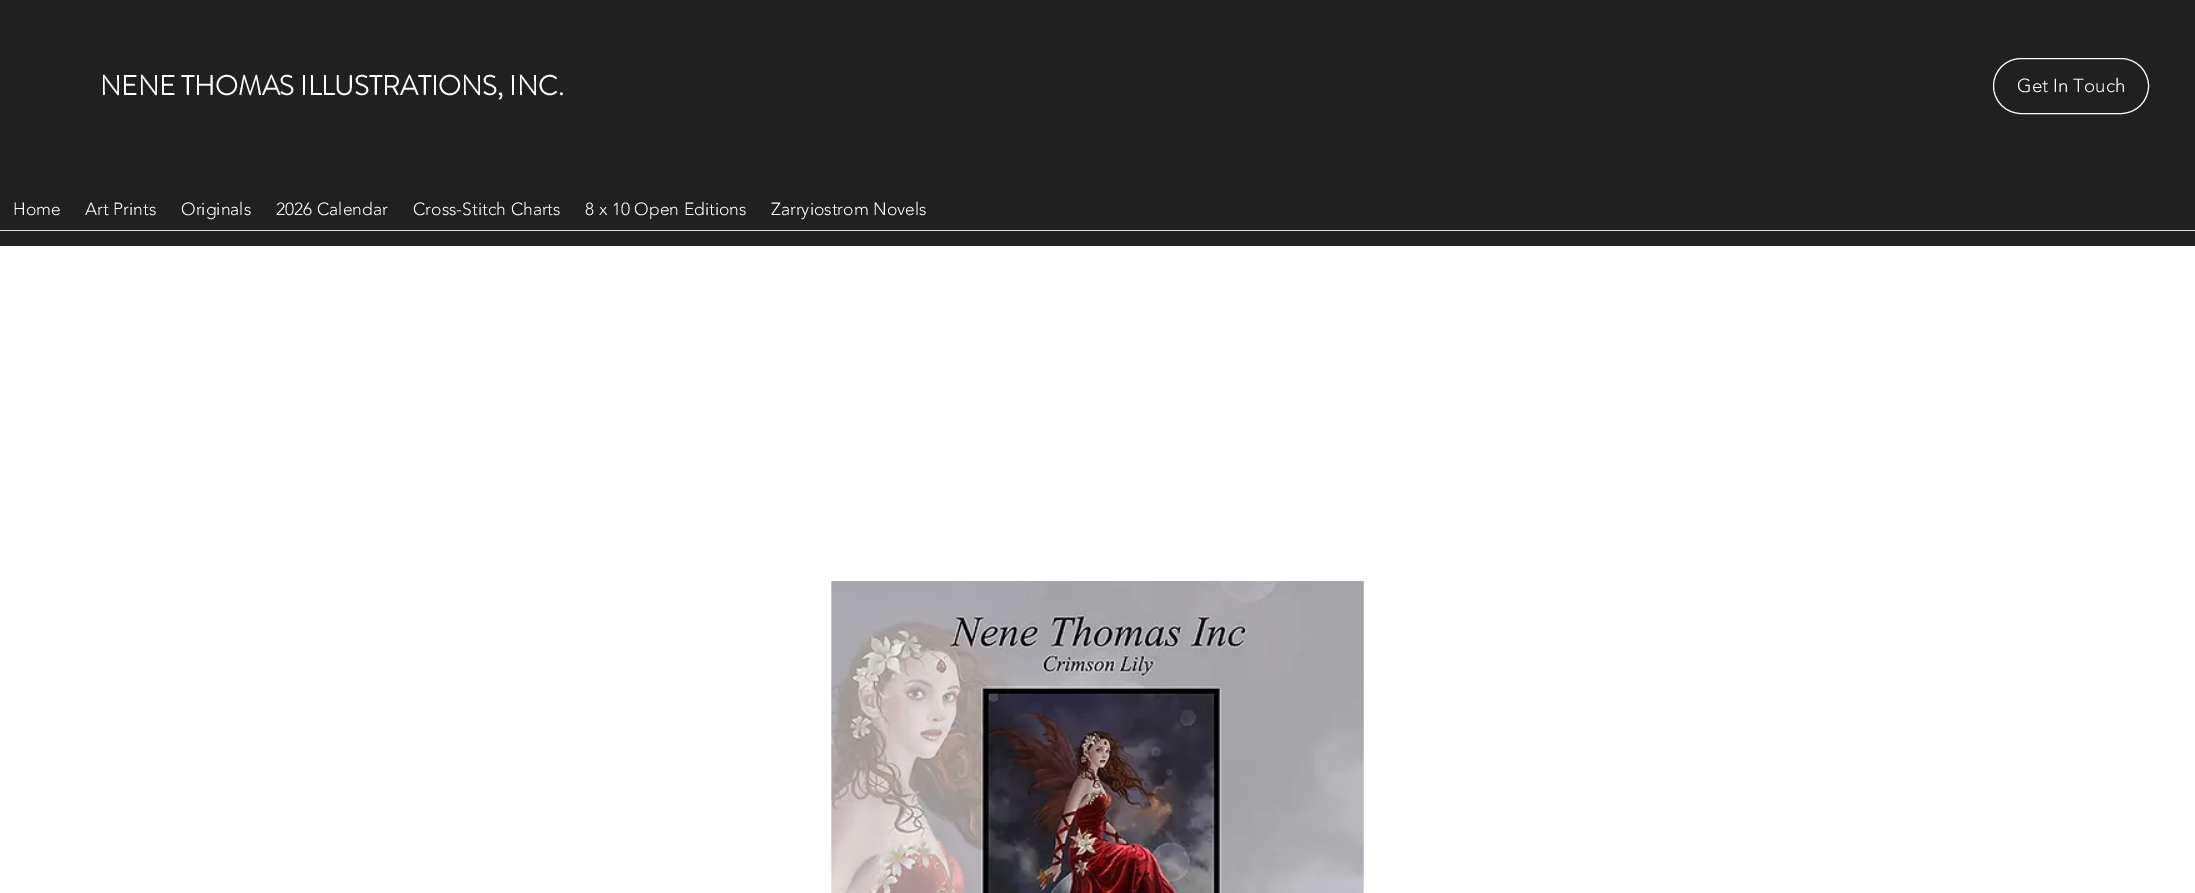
%!PS-Adobe-3.0
%%BoundingBox: 0 0 2195 893
%%LanguageLevel: 3
%%Pages: 1
%%EndComments
%%BeginProlog
/setink { dup -16 bitshift 255 div exch dup -8 bitshift 255 and 255 div exch 255 and 255 div setrgbcolor } def
/usefont { [ exch dup neg 0 0 3 -1 roll 0 0 ] selectfont } def
/rrect { 5 dict begin { /r /h /w /y /x } { exch def } forall
  x r add y moveto x w add y 2 copy h add r arct x w add y h add x 1 index r arct
  x y h add x y r arct x y 2 copy exch w add exch r arct closepath end } def
/drawimage { 5 dict begin { /h /w /y /x /name } { exch def } forall
  gsave x y translate w h scale
  w h 8 [w 0 0 h 0 0] name (r) file false 3 colorimage grestore end } def
%%EndProlog
%%BeginSetup
<< /PageSize [2195 893] >> setpagedevice
%%EndSetup
%%Page: 1 1
0 893 translate 1 -1 scale
4 setmiterlimit
16#FFFFFF setink
0 0 2195 893 rectfill
16#202020 setink
0 0 2195 246 rectfill
/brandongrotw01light-Bold 27.5 usefont
16#FFFFFF setink
100 95 moveto (NENE THOMAS ILLUSTRATIONS, INC.) show
1993.5 58.5 155 55 27.5 rrect stroke
/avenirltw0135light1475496-Light 18.75 usefont
2017 92 moveto (Get In Touch) show
/avenirltw0135light1475496-Light 17.5 usefont
[
    [(Home) 13 215]
    [(Art Prints) 85 215]
    [(Originals) 181 215]
    [(2026 Calendar) 276 215]
    [(Cross-Stitch Charts) 413 215]
    [(8 x 10 Open Editions) 585 215]
    [(Zarryiostrom Novels) 771 215]
] { aload pop moveto show } forall
16#DEDEDE setink
0 230 2195 1 rectfill
(img1.raw) 831 581 533 312 drawimage
showpage
%%EOF
